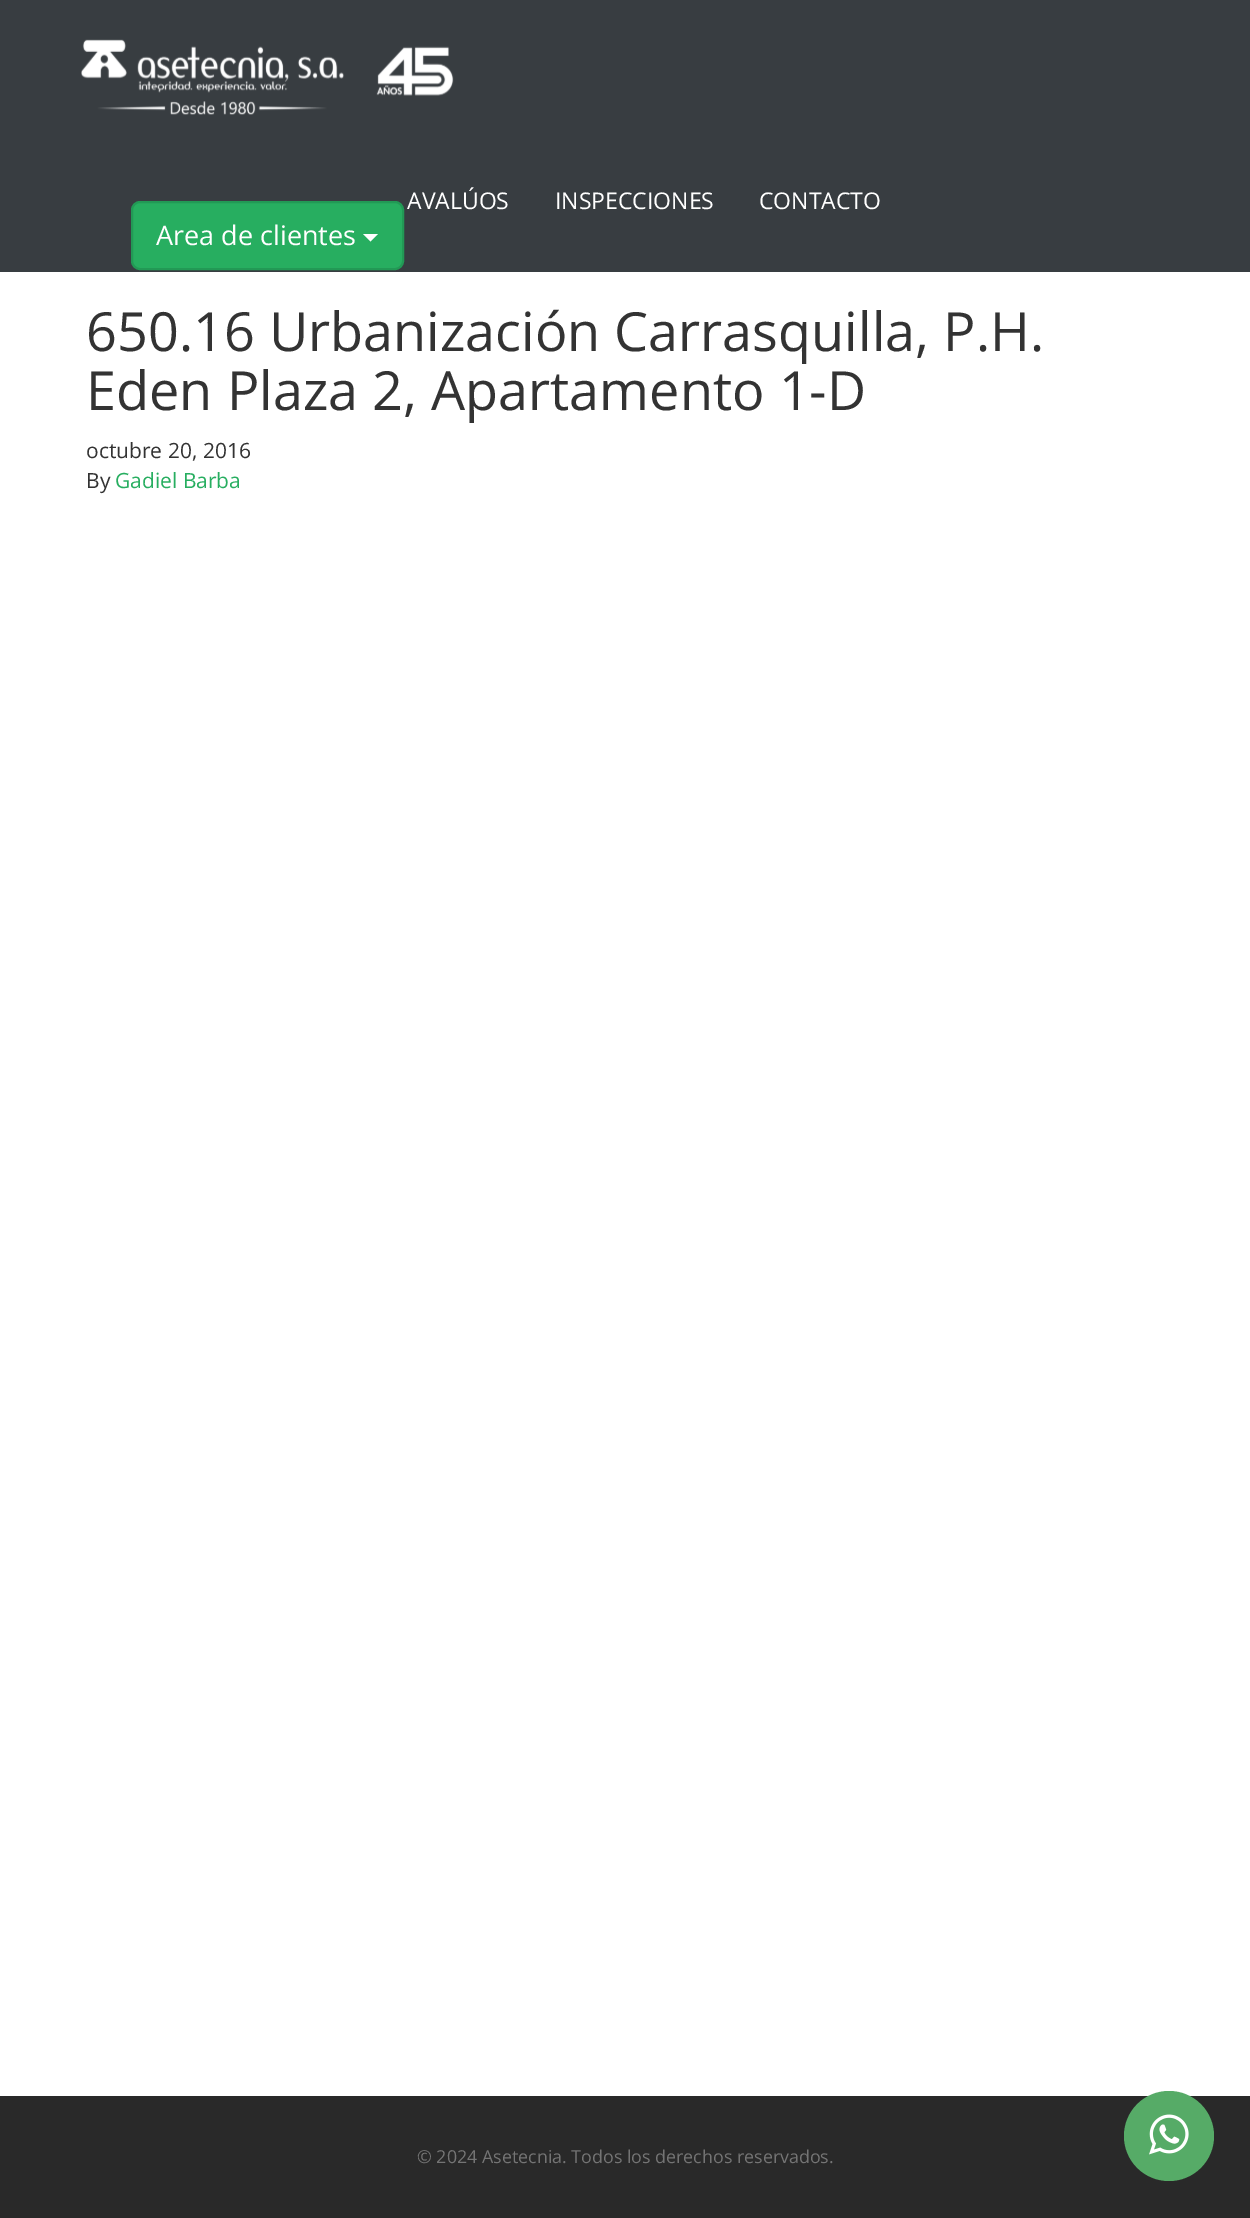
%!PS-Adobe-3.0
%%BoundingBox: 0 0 1250 2218
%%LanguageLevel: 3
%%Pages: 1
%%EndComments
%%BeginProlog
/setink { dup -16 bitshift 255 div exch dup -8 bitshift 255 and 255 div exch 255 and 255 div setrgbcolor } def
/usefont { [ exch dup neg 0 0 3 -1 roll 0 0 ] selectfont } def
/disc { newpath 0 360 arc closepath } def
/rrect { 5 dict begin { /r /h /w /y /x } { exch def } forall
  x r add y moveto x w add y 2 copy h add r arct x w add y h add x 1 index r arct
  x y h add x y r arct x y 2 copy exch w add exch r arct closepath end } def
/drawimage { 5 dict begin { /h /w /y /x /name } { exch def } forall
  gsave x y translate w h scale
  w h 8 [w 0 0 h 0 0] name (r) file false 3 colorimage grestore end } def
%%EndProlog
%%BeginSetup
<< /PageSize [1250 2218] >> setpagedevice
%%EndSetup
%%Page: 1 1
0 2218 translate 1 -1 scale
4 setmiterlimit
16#FFFFFF setink
0 0 1250 2218 rectfill
16#383D41 setink
0 0 1250 272 rectfill
(img1.raw) 81 39 373 76 drawimage
/OpenSans-Regular 23 usefont
16#FFFFFF setink
[
    [(AVALÚOS) 407 209]
    [(INSPECCIONES) 555 209]
    [(CONTACTO) 759 209]
] { aload pop moveto show } forall
16#27AE60 setink
132 202 271 67 8 rrect gsave fill grestore
16#229955 setink
2 setlinewidth
stroke
/OpenSans-Regular 27 usefont
16#FFFFFF setink
156 245 moveto (Area de clientes) show
363 234 moveto 378 234 lineto 370.5 241.5 lineto closepath fill
/OpenSans-Regular 54 usefont
16#333333 setink
86 351 moveto (650.16 Urbanización Carrasquilla, P.H.) show
86 410 moveto (Eden Plaza 2, Apartamento 1-D) show
/OpenSans-Regular 21 usefont
86 458 moveto (octubre 20, 2016) show
86 488 moveto (By) show
16#27AE60 setink
115 488 moveto (Gadiel Barba) show
16#292929 setink
0 2096 1250 122 rectfill
/OpenSans-Regular 17.85 usefont
16#747474 setink
417 2163 moveto (© 2024 Asetecnia. Todos los derechos reservados.) show
16#56AB67 setink
1169 2136 45 disc fill
(img2.raw) 1149 2114 40 41 drawimage
showpage
%%EOF
